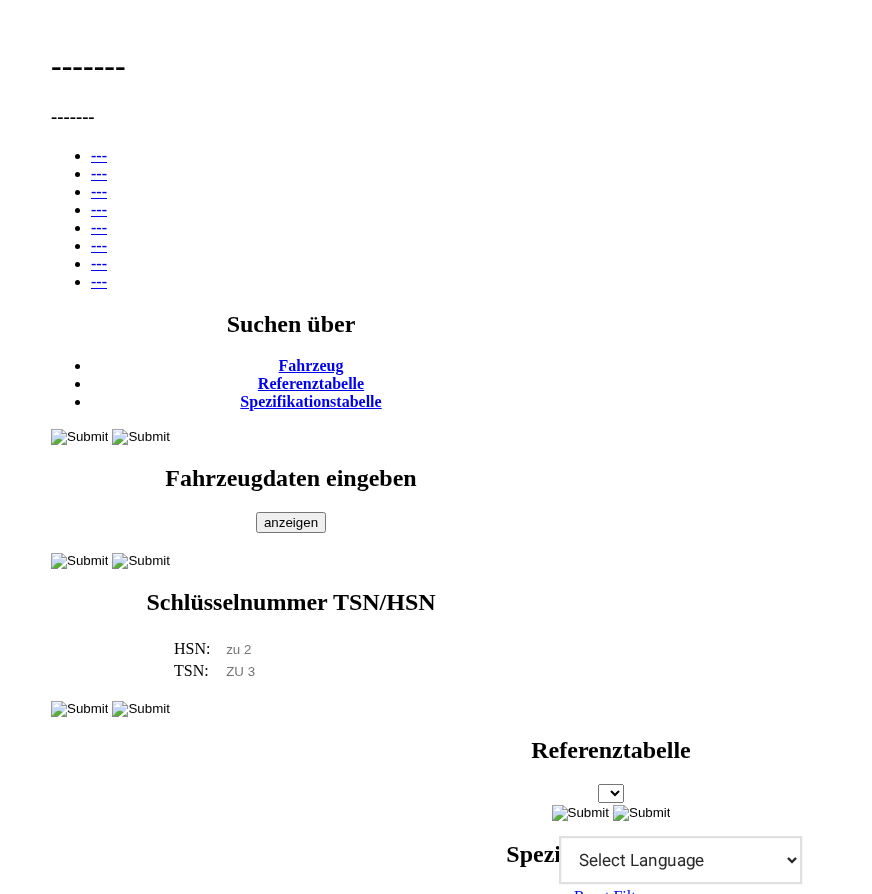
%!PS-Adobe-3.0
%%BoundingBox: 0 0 872 894
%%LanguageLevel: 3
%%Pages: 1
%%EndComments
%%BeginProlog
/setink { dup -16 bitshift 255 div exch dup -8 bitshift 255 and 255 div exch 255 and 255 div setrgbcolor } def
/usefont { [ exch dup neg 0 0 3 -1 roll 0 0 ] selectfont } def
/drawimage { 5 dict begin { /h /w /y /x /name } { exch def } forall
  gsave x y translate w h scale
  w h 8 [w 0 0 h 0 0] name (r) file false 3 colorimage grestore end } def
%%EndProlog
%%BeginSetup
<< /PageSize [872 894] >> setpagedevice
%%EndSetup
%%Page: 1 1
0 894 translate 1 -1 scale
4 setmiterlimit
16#FFFFFF setink
0 0 872 894 rectfill
(img1.raw) 51 67 640 827 drawimage
561 846 130 16 rectfill
16#E0E0E0 setink
2 setlinewidth
560 837 241 46 rectstroke
16#292929 setink
788 858 moveto 792 862 lineto 796 858 lineto stroke
/Roboto-Regular 17 usefont
579 866 moveto (Select Language) show
showpage
%%EOF
